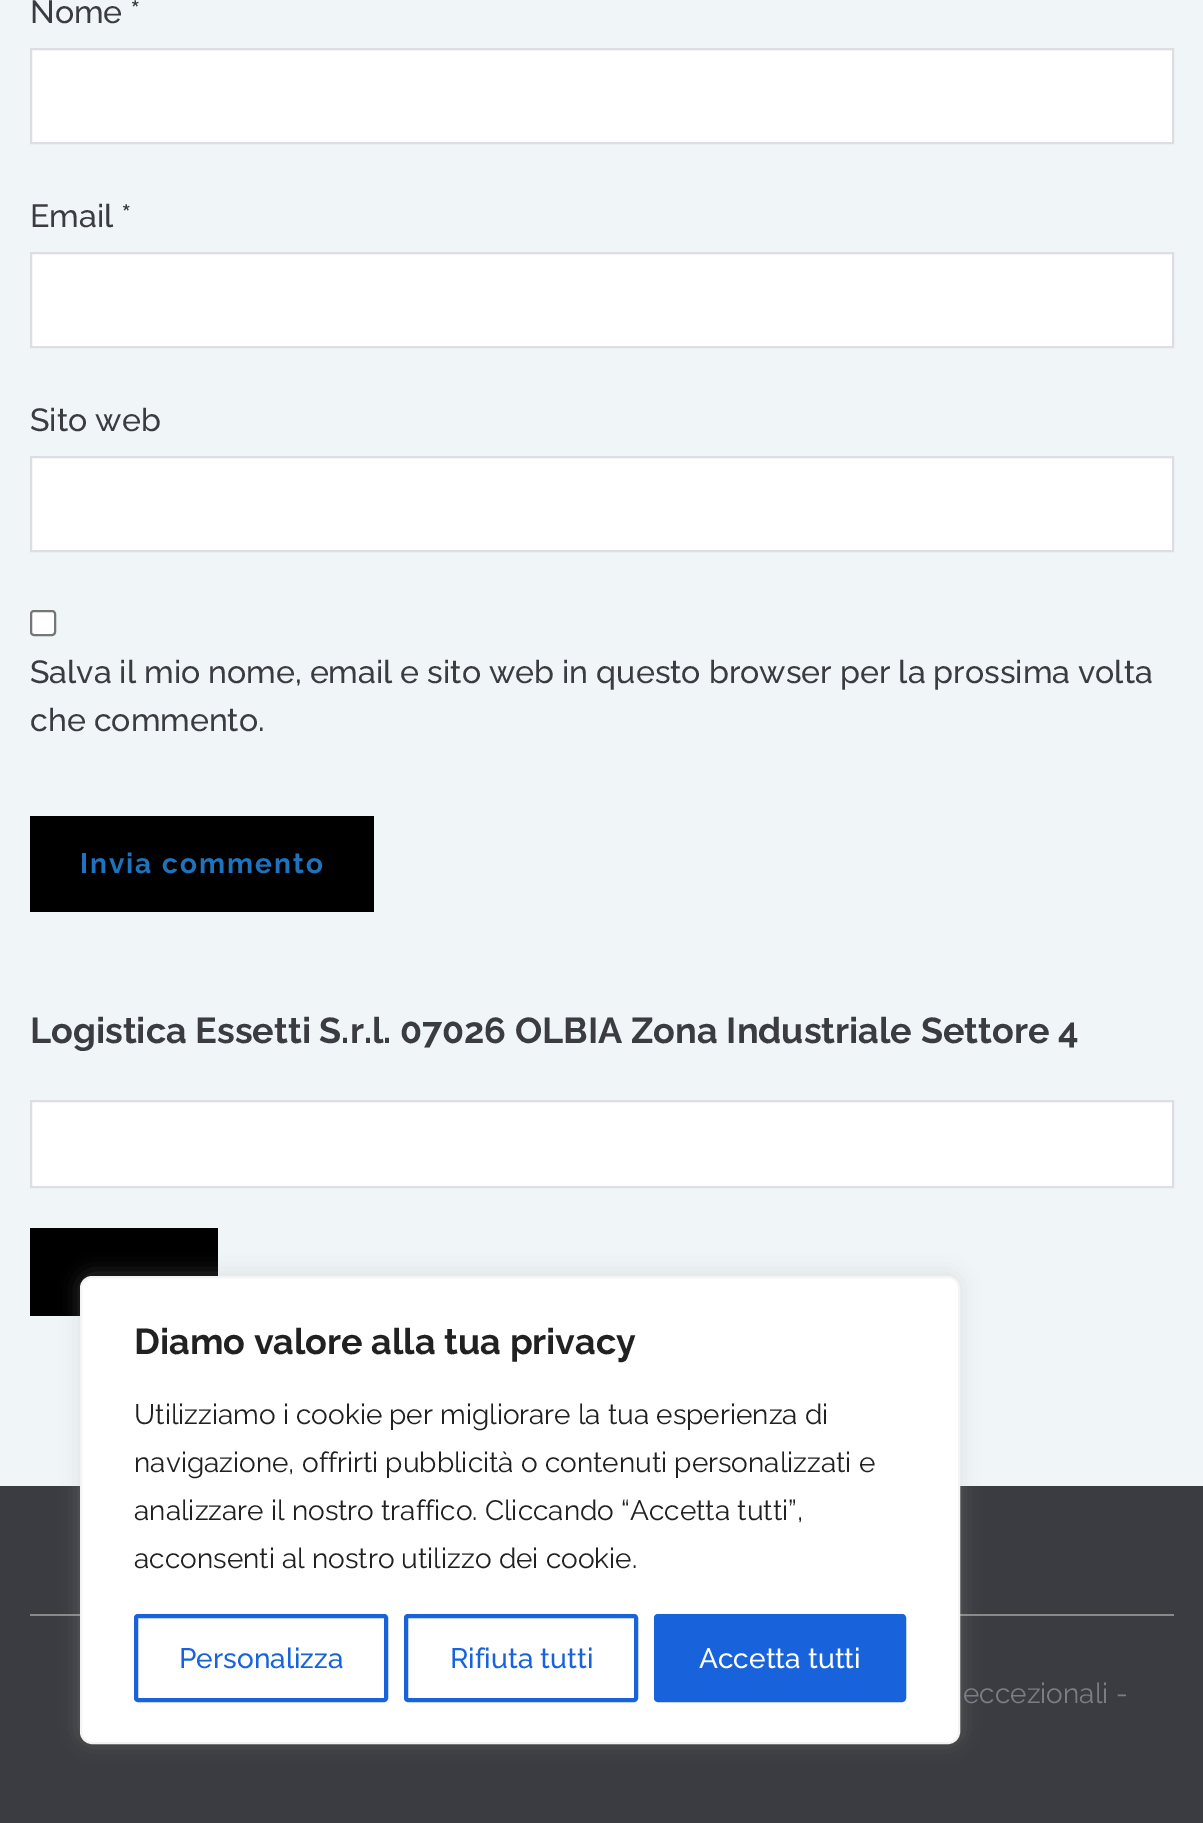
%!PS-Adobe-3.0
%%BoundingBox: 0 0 1203 1823
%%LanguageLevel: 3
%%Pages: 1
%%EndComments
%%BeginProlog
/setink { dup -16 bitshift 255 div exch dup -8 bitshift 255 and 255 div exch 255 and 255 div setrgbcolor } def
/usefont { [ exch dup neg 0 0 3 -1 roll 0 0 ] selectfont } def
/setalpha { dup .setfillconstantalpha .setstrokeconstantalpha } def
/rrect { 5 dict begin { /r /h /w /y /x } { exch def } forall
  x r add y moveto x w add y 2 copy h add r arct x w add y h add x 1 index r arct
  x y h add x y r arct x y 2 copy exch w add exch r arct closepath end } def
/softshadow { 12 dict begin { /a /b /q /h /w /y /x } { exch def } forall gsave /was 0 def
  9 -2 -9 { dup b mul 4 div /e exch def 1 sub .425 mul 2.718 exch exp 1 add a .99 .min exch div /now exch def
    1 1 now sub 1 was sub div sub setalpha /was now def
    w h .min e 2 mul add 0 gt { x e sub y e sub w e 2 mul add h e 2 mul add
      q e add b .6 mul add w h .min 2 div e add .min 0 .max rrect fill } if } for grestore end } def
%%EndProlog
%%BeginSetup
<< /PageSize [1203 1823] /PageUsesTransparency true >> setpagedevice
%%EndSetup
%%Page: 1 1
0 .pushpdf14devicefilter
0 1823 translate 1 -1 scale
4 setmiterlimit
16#F0F5F7 setink
0 0 1203 1823 rectfill
/Raleway-Medium 32 usefont
16#3A3C41 setink
30 23 moveto (Nome *) show
16#FFFFFF setink
31 49 moveto 1173 49 lineto 1173 143 lineto 31 143 lineto closepath gsave fill grestore
16#DCDEE4 setink
2 setlinewidth
stroke
16#3A3C41 setink
30 227 moveto (Email *) show
16#FFFFFF setink
31 253 moveto 1173 253 lineto 1173 347 lineto 31 347 lineto closepath gsave fill grestore
16#DCDEE4 setink
stroke
16#3A3C41 setink
30 431 moveto (Sito web) show
16#FFFFFF setink
31 457 moveto 1173 457 lineto 1173 551 lineto 31 551 lineto closepath gsave fill grestore
16#DCDEE4 setink
stroke
16#FFFFFF setink
31 611 24 24 3 rrect gsave fill grestore
16#767676 setink
stroke
16#3A3C41 setink
30 683 moveto (Salva il mio nome, email e sito web in questo browser per la prossima volta) show
30 731 moveto (che commento.) show
16#000000 setink
30 816 344 96 rectfill
/Raleway-Bold 28 usefont
16#1E73BE setink
80 873 moveto 2 0 (Invia commento) ashow
/Raleway-Bold 36 usefont
16#3A3C41 setink
30 1043 moveto (Logistica Essetti S.r.l. 07026 OLBIA Zona Industriale Settore 4) show
16#FFFFFF setink
31 1101 moveto 1173 1101 lineto 1173 1187 lineto 31 1187 lineto closepath gsave fill grestore
16#DCDEE4 setink
stroke
[
    [30 1228 188 88 16#000000]
    [0 1486 1203 337 16#3A3C41]
    [30 1614 1144 2 16#898989]
] { aload pop setink rectfill } forall
16#ACABAB setink
80 1274 880 468 12 10 0.3 softshadow
16#FFFFFF setink
81 1277 878 466 11 rrect gsave fill grestore
16#F4F4F4 setink
stroke
16#212121 setink
134 1354 moveto (Diamo valore alla tua privacy) show
/Raleway-Thin 28 usefont
[
    [(Utilizziamo i cookie per migliorare la tua esperienza di) 134 1424]
    [(navigazione, offrirti pubblicità o contenuti personalizzati e) 134 1472]
    [(analizzare il nostro traffico. Cliccando “Accetta tutti”,) 134 1520]
    [(acconsenti al nostro utilizzo dei cookie.) 134 1568]
] { aload pop moveto show } forall
16#1863DC setink
4 setlinewidth
136 1616 250 84 2 rrect stroke
/Raleway-Medium 28 usefont
179 1668 moveto (Personalizza) show
406 1616 230 84 2 rrect stroke
450 1668 moveto (Rifiuta tutti) show
656 1616 248 84 2 rrect gsave fill grestore
stroke
16#FFFFFF setink
699 1668 moveto (Accetta tutti) show
/Raleway-Thin 28 usefont
16#7A7D86 setink
963 1703 moveto (eccezionali -) show
.poppdf14devicefilter showpage
%%EOF
